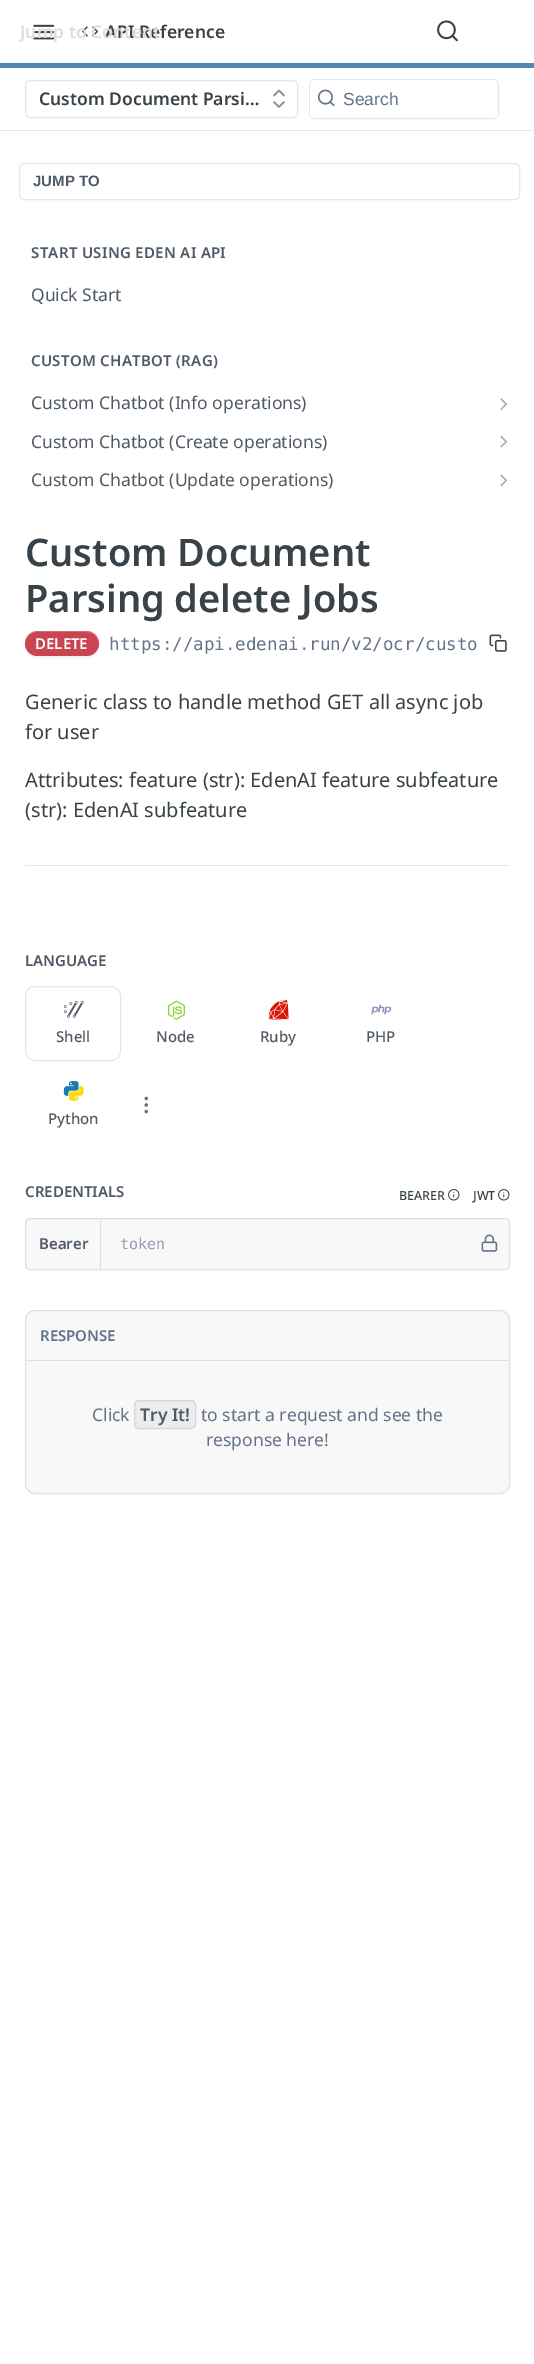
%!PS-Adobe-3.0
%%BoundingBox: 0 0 534 2364
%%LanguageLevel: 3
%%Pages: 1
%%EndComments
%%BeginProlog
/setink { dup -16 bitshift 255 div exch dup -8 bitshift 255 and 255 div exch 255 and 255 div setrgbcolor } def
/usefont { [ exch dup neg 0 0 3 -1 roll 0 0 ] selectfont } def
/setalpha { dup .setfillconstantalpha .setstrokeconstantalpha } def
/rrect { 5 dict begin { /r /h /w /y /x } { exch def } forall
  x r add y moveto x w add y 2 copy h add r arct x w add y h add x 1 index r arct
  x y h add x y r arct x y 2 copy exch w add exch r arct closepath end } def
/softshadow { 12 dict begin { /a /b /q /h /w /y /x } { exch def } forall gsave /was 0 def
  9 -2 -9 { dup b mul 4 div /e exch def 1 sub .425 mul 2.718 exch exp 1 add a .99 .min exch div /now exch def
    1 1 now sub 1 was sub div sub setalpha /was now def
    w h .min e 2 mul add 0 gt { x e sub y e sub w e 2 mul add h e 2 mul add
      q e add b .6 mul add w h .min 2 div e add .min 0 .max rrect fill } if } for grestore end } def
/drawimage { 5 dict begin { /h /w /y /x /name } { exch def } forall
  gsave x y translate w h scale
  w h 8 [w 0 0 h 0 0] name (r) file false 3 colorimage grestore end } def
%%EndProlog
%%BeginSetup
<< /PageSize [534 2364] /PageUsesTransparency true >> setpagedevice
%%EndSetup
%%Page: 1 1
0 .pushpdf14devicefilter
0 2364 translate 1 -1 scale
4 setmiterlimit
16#FFFFFF setink
0 0 534 2364 rectfill
16#E6E6E6 setink
0 130 534 1 rectfill
16#5386B2 setink
0 63 534 5 rectfill
(img1.raw) 33 24 22 16 drawimage
(img2.raw) 82 26 16 11 drawimage
/NotoSans-SemiBold 17.5 usefont
16#384248 setink
105 38 moveto (API Reference) show
16#DADCDD setink
20 38 moveto (Jump to Content) show
(img3.raw) 437 20 21 22 drawimage
16#E6E6E6 setink
25.5 80.5 272 37 4.5 rrect stroke
16#384248 setink
39 105 moveto (Custom Document Parsi…) show
16#888E91 setink
1.7 setlinewidth
1 setlinecap
1 setlinejoin
274 102 moveto 279 107 lineto 284 102 lineto 284 95.5 moveto 279 90.5 lineto 274 95.5 lineto stroke
16#E6E6E6 setink
1 setlinewidth
0 setlinecap
0 setlinejoin
309.5 79.5 189 39 5.5 rrect stroke
16#FFFFFF setink
310 80 188 38 5 rrect fill
(img4.raw) 317 89 18 18 drawimage
/LiberationSans-Regular 17.5 usefont
16#637288 setink
343 105 moveto (Search) show
16#E6E6E6 setink
19.5 163.5 500 36 4.5 rrect stroke
/LiberationSans-Bold 15 usefont
16#4F5A66 setink
33 186 moveto (JUMP TO) show
/NotoSans-SemiBold 15 usefont
31 258 moveto 0.3 0 (START USING EDEN AI API) ashow
/NotoSans-Regular 17.5 usefont
31 301 moveto (Quick Start) show
/NotoSans-SemiBold 15 usefont
31 366 moveto 0.3 0 (CUSTOM CHATBOT \(RAG\)) ashow
/NotoSans-Regular 17.5 usefont
31 409 moveto (Custom Chatbot \(Info operations\)) show
(img5.raw) 500 398 7 12 drawimage
31 448 moveto (Custom Chatbot \(Create operations\)) show
(img6.raw) 500 435 7 13 drawimage
gsave
0 130 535 360 rectclip
31 486 moveto (Custom Chatbot \(Update operations\)) show
grestore
(img7.raw) 500 474 7 13 drawimage
16#E6E6E6 setink
25 865 485 1 rectfill
/NotoSans-SemiBold 38 usefont
16#384248 setink
25 566 moveto (Custom Document) show
25 612 moveto (Parsing delete Jobs) show
16#000000 setink
25 633 74 25 12.5 1 0.05 softshadow
16#CB4452 setink
25 631 74 25 12.5 rrect fill
0.2 setalpha
16#FFFFFF setink
38 632 moveto 86 632 lineto 93 632 99 638 99 644 curveto 99 638 95 632 89 631 curveto 35 631 lineto 29 632 25 638 25 644 curveto 25 638 31 632 38 632 curveto closepath fill
/NotoSans-SemiBold 15 usefont
1 setalpha
35 649 moveto (DELETE) show
/DejaVuSansMono-Regular 17.5 usefont
16#637288 setink
109 650 moveto (https://api.edenai.run/v2/ocr/custo) show
(img8.raw) 489 634 18 18 drawimage
/NotoSans-Regular 20 usefont
16#384248 setink
[
    [(Generic class to handle method GET all async job) 25 709]
    [(for user) 25 739]
    [(Attributes: feature \(str\): EdenAI feature subfeature) 25 787]
    [(\(str\): EdenAI subfeature) 25 817]
] { aload pop moveto show } forall
/NotoSans-SemiBold 15 usefont
16#4F5A66 setink
25 966 moveto (LANGUAGE) show
16#E6E6E6 setink
25.5 986.5 95 74 9.5 rrect stroke
(img9.raw) 63 1001 21 17 drawimage
/NotoSans-Medium 15 usefont
16#4F5A66 setink
56 1042 moveto (Shell) show
(img10.raw) 168 1000 17 20 drawimage
156 1042 moveto (Node) show
(img11.raw) 268 999 21 21 drawimage
260 1042 moveto (Ruby) show
(img12.raw) 371 1004 21 11 drawimage
366 1042 moveto (PHP) show
(img13.raw) 144 1096 5 18 drawimage
(img14.raw) 63 1081 16 15 drawimage
(img15.raw) 68 1086 16 15 drawimage
48 1124 moveto (Python) show
/NotoSans-SemiBold 15 usefont
25 1197 moveto (CREDENTIALS) show
/NotoSans-Medium 12.5 usefont
16#384248 setink
399 1200 moveto (BEARER) show
(img16.raw) 448 1189 12 12 drawimage
473 1200 moveto (JWT) show
(img16.raw) 498 1189 12 12 drawimage
16#F8F8F8 setink
25 1218 485 52 5 rrect fill
0.1 setalpha
16#000000 setink
25.5 1218.5 484 51 4.5 rrect stroke
1 setalpha
16#DFDFDF setink
100 1219 1 50 rectfill
/NotoSans-SemiBold 15 usefont
16#4F5A66 setink
39 1249 moveto (Bearer) show
/DejaVuSansMono-Regular 15 usefont
16#939EAE setink
120 1249 moveto (token) show
(img17.raw) 481 1234 17 18 drawimage
16#F8F8F8 setink
25 1310 485 184 10 rrect fill
0.1 setalpha
16#000000 setink
25.5 1310.5 484 183 9.5 rrect stroke
1 setalpha
16#DFDFDF setink
26 1360 483 1 rectfill
/NotoSans-SemiBold 15 usefont
16#637288 setink
40 1341 moveto (RESPONSE) show
/NotoSans-Regular 17.5 usefont
92 1421 moveto (Click) show
16#ECECEC setink
134 1400 62 29 5 rrect fill
0.1 setalpha
16#000000 setink
134.5 1400.5 61 28 4.5 rrect stroke
/NotoSans-SemiBold 17.5 usefont
1 setalpha
16#4F5A66 setink
140 1421 moveto (Try It!) show
/NotoSans-Regular 17.5 usefont
16#637288 setink
201 1421 moveto (to start a request and see the) show
206 1446 moveto (response here!) show
.poppdf14devicefilter showpage
%%EOF
